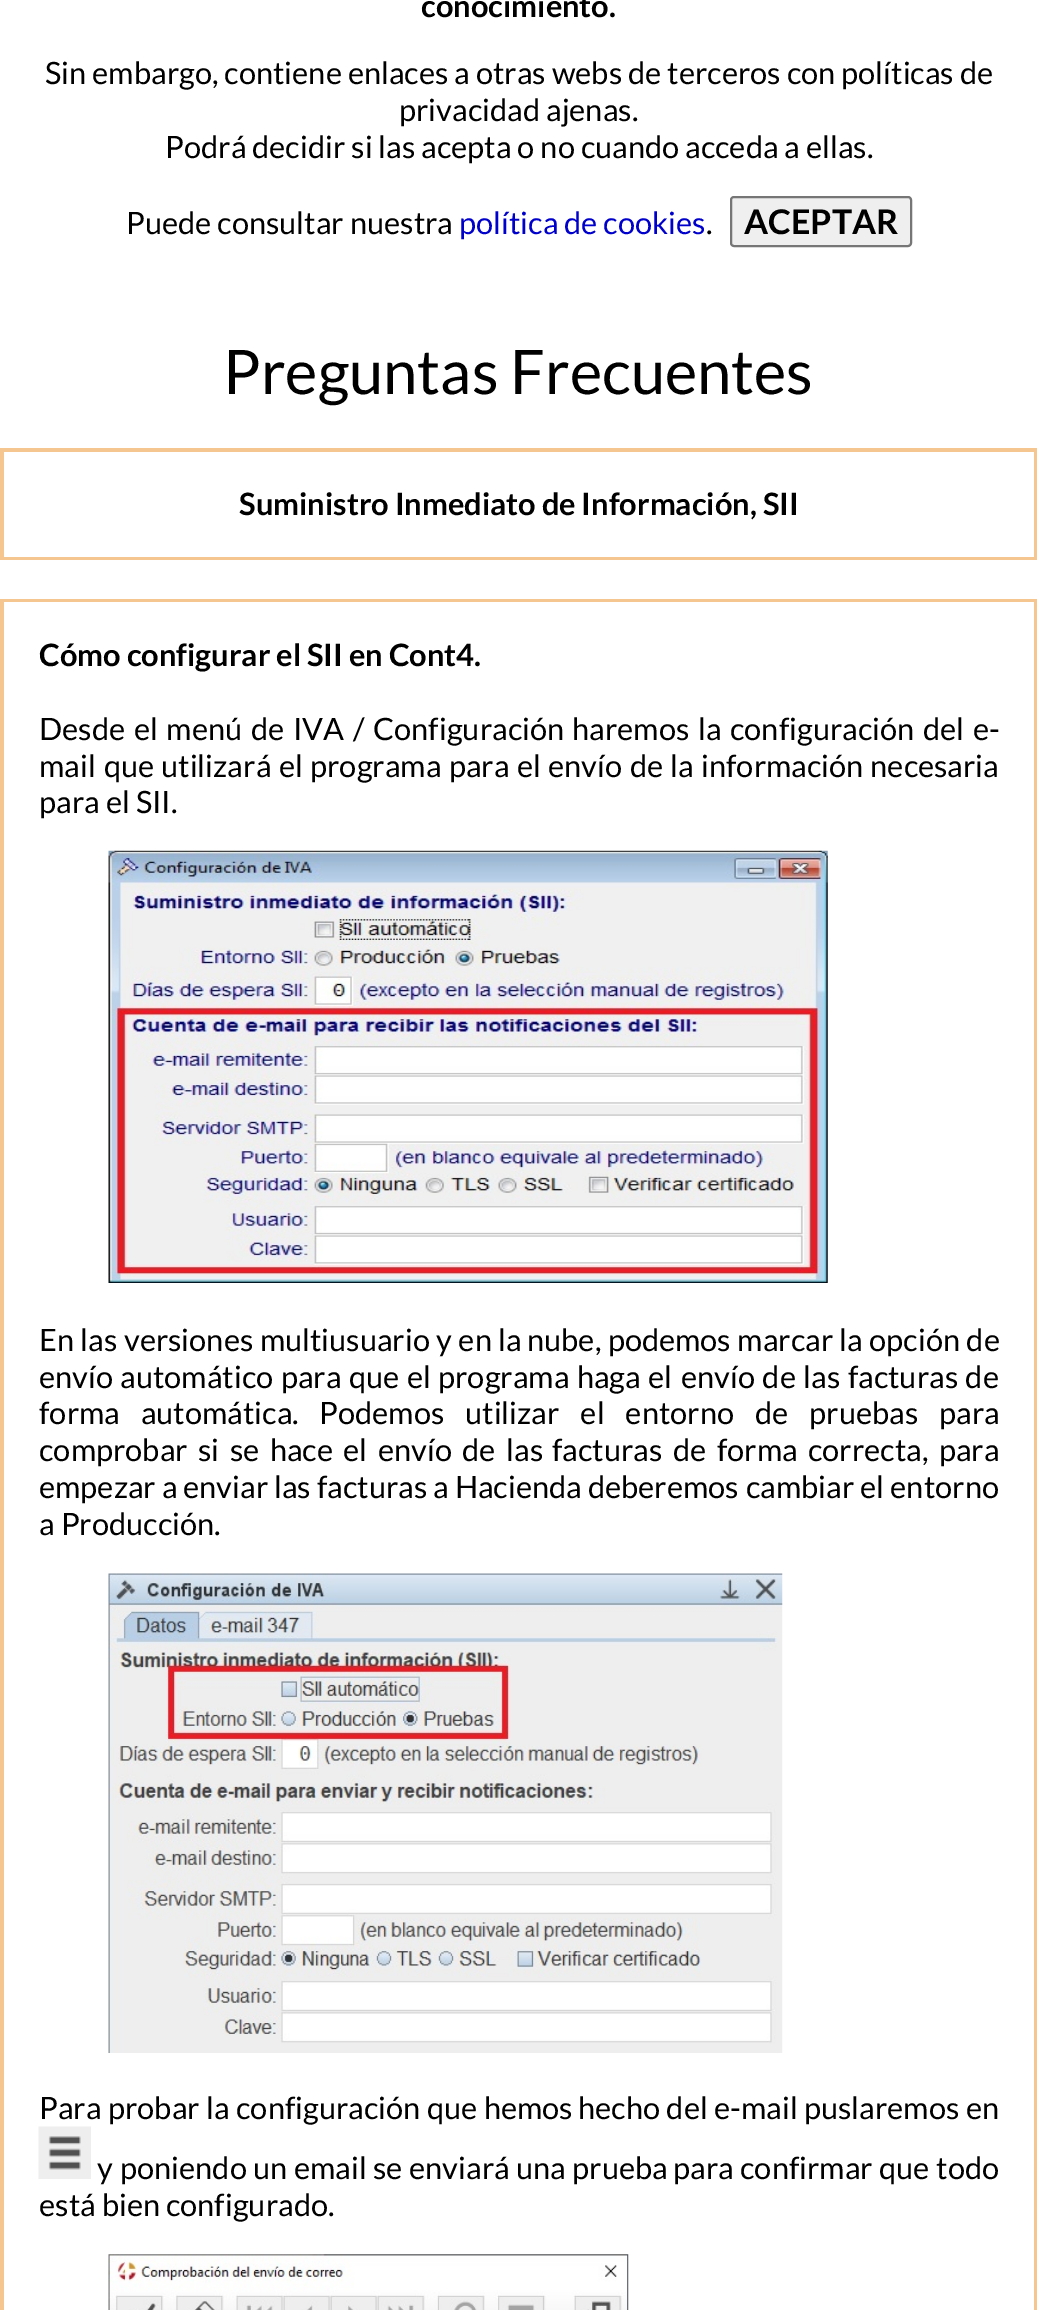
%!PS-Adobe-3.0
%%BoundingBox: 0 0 1037 2310
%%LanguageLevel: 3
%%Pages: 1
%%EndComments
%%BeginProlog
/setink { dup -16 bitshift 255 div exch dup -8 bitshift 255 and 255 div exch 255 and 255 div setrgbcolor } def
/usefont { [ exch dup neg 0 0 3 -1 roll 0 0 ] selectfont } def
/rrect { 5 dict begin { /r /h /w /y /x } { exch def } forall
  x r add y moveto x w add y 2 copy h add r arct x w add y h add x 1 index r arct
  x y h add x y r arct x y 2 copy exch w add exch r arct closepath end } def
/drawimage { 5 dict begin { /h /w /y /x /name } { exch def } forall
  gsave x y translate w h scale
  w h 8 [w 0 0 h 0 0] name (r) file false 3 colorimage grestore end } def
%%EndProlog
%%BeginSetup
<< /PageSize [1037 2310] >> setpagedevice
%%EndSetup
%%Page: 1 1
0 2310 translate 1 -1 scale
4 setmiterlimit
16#FFFFFF setink
0 0 1037 2310 rectfill
/Lato-Bold 30.8 usefont
16#000000 setink
421 17 moveto (conocimiento.) show
/Lato-Regular 30.8 usefont
[
    [(Sin embargo, contiene enlaces a otras webs de terceros con políticas de) 45 84]
    [(privacidad ajenas.) 399 121]
    [(Podrá decidir si las acepta o no cuando acceda a ellas.) 165 158]
    [(Puede consultar nuestra) 126 234]
] { aload pop moveto show } forall
16#0000CC setink
459 234 moveto (política de cookies) show
16#000000 setink
706 234 moveto (.) show
16#EFEFEF setink
731 197 180 49 3 rrect gsave fill grestore
16#767676 setink
2 setlinewidth
stroke
/Lato-Bold 34 usefont
16#000000 setink
744 234 moveto (ACEPTAR) show
/Lato-Regular 61.5 usefont
223 394 moveto (Preguntas Frecuentes) show
16#F5C690 setink
0 448 1037 112 rectfill
16#FFFFFF setink
4 452 1030 105 rectfill
/Lato-Bold 30.8 usefont
16#000000 setink
239 515 moveto (Suministro Inmediato de Información, SII) show
16#F5C690 setink
0 599 1037 1711 rectfill
16#FFFFFF setink
4 602 1030 1708 rectfill
16#000000 setink
39 666 moveto (Cómo configurar el SII en Cont4.) show
/Lato-Regular 30.8 usefont
39 740 moveto 2.75 0 32 (Desde el menú de IVA / Configuración) widthshow
572 740 moveto 2.75 0 32 (haremos la configuración del e-) widthshow
39 777 moveto 2 0 32 (mail que) widthshow
161 777 moveto 1.5 0 32 (utilizará el programa para el envío de la) widthshow
701 777 moveto 1 0 32 (información necesaria) widthshow
39 813 moveto (para el SII.) show
(img1.raw) 108 850 720 433 drawimage
39 1351 moveto 0.5 0 32 (En las versiones multiusuario y en la) widthshow
527 1351 moveto 0.5 0 32 (nube, podemos marcar la opción de) widthshow
39 1388 moveto (envío) show
120 1388 moveto 1.5 0 32 (automático para que el programa haga el) widthshow
681 1388 moveto 1.5 0 32 (envío de las facturas de) widthshow
39 1424 moveto 15 0 32 (forma automática.) widthshow
319 1424 moveto 15 0 32 (Podemos utilizar el entorno de pruebas) widthshow
939 1424 moveto (para) show
39 1461 moveto 4.5 0 32 (comprobar si se hace el envío de las) widthshow
552 1461 moveto 4.5 0 32 (facturas de forma correcta, para) widthshow
[
    [(empezar a) 39 1498]
    [(enviar las facturas a Hacienda deberemos) 183 1498]
    [(cambiar el entorno) 746 1498]
    [(a Producción.) 39 1535]
] { aload pop moveto show } forall
(img2.raw) 108 1573 675 480 drawimage
39 2119 moveto 0.5 0 32 (Para probar la configuración que hemos) widthshow
578 2119 moveto 0.5 0 32 (hecho del e-mail puslaremos en) widthshow
(img3.raw) 38 2126 53 53 drawimage
97 2179 moveto (y) show
120 2179 moveto 0.5 0 32 (poniendo un email se enviará una prueba) widthshow
673 2179 moveto 0.5 0 32 (para confirmar que todo) widthshow
39 2216 moveto (está bien configurado.) show
(img4.raw) 108 2254 521 56 drawimage
showpage
%%EOF
